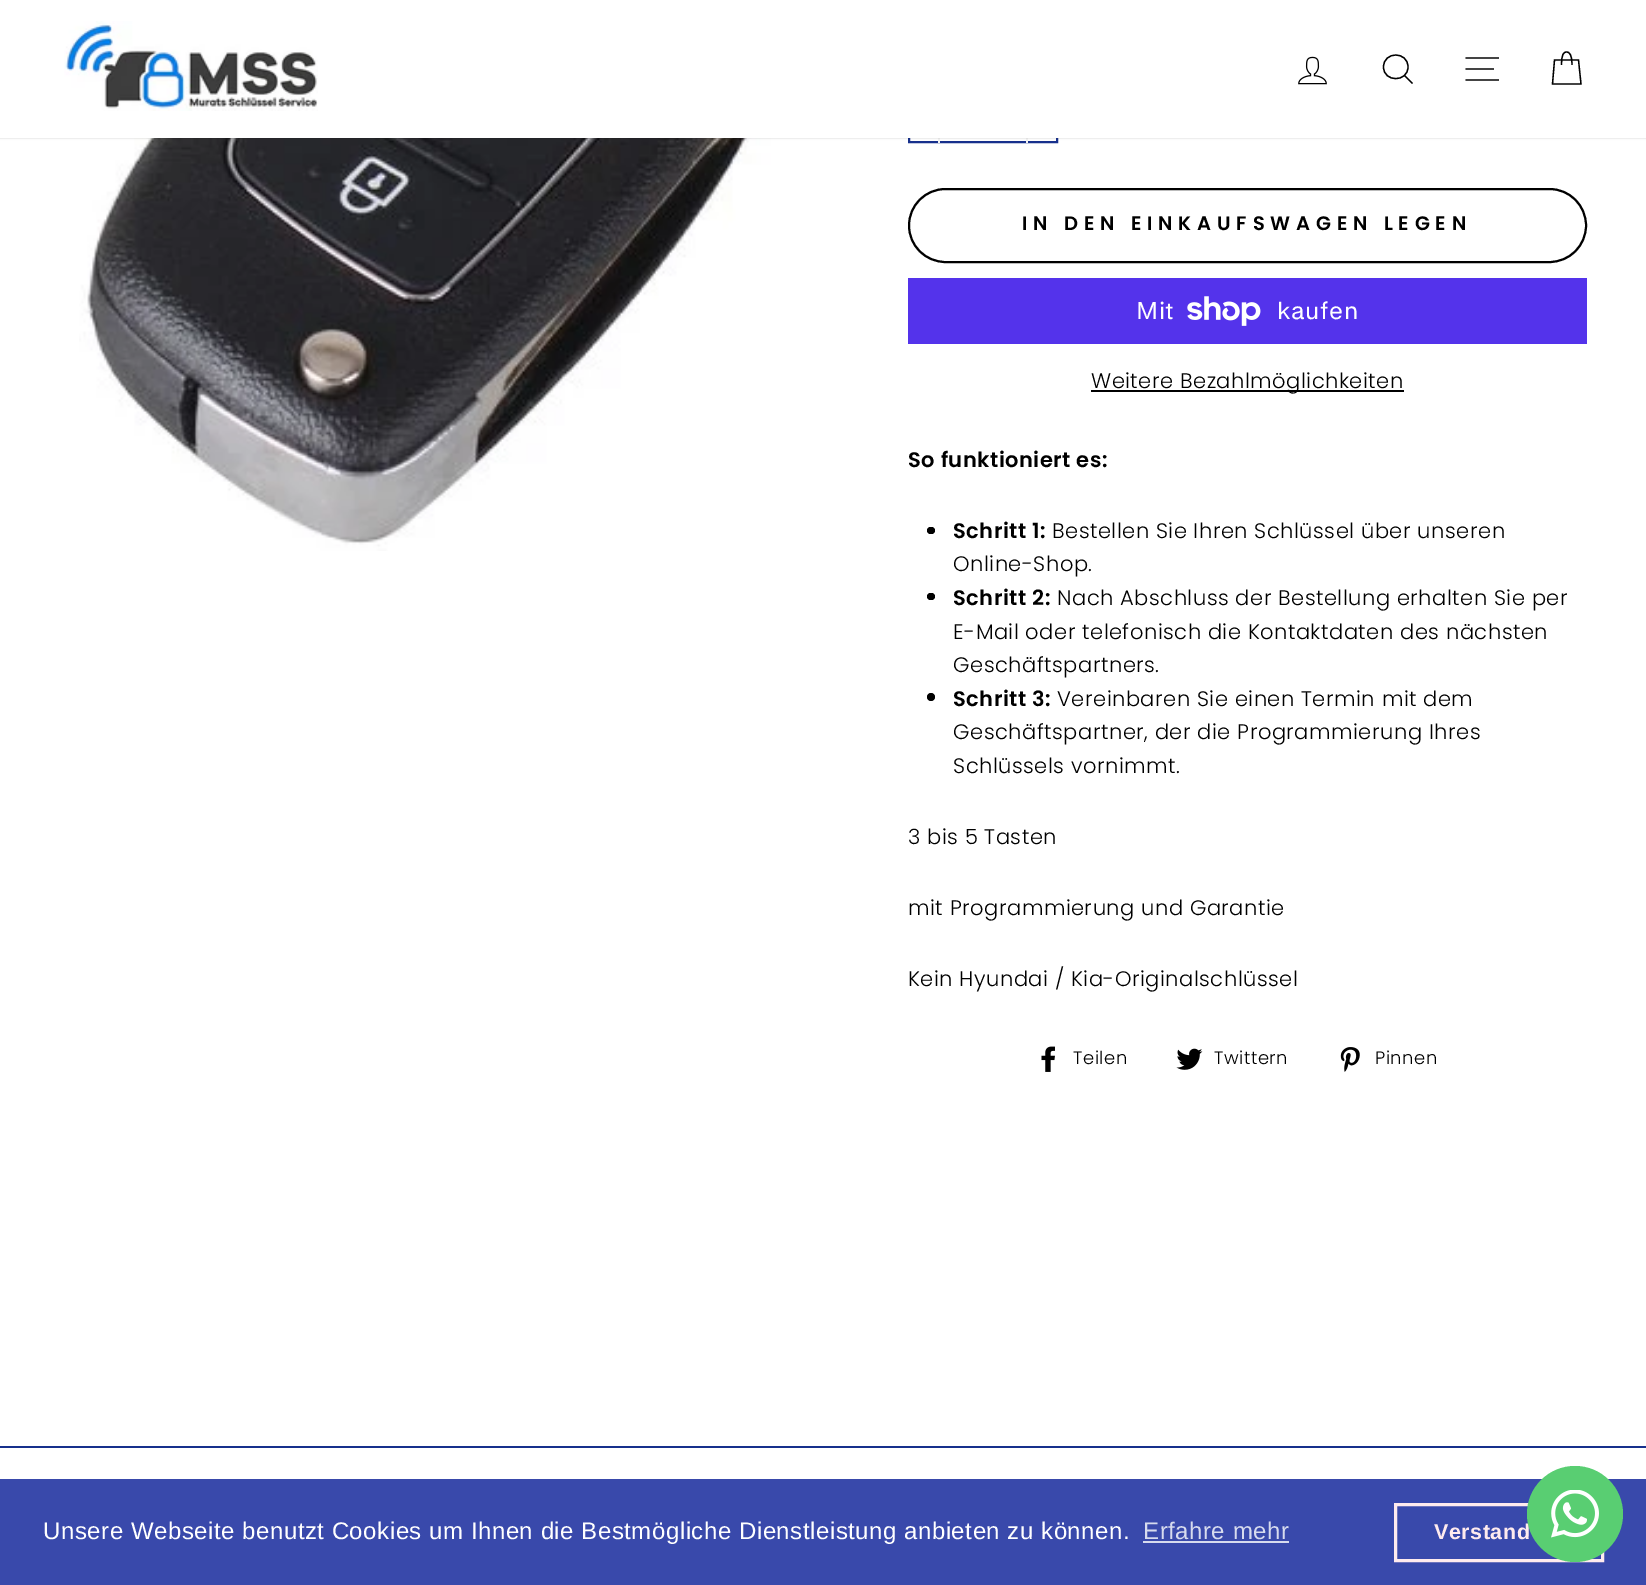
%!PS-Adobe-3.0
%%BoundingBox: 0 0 1646 1585
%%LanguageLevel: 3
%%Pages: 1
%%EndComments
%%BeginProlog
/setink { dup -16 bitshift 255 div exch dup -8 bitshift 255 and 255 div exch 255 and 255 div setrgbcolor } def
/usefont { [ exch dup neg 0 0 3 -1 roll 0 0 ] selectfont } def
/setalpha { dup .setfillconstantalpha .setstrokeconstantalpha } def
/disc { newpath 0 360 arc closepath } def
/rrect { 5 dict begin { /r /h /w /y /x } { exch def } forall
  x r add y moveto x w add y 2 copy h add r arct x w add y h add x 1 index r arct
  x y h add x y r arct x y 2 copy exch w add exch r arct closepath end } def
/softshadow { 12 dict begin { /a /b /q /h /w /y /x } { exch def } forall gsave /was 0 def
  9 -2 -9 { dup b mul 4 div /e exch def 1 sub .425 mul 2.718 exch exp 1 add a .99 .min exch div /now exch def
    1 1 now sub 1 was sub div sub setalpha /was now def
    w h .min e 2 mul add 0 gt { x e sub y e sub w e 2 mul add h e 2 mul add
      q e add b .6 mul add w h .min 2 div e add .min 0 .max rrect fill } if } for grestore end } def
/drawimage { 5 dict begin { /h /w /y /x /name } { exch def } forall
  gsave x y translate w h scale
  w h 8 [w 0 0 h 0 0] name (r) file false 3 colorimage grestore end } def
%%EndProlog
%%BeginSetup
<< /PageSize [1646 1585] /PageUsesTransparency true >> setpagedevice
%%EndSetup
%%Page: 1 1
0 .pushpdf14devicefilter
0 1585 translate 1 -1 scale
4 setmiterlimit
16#FFFFFF setink
0 0 1646 1585 rectfill
(img3.raw) 79 138 700 413 drawimage
16#17308C setink
2 setlinewidth
909 82 148 60 rectstroke
16#F2F2F2 setink
938 138 2 5 rectfill
1026 138 2 5 rectfill
16#000000 setink
0 0 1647 138 0 1 0.2 softshadow
16#FFFFFF setink
0 0 1646 138 rectfill
(img1.raw) 64 21 254 90 drawimage
(img2.raw) 1298 56 29 29 drawimage
16#000000 setink
1.3 setlinewidth
1408 67 moveto 1408 82.5 1383.5 82.5 1383.5 67 curveto 1383.5 51 1408 51 1408 67 curveto closepath 1412.5 83.5 moveto 1404.5 75.5 lineto stroke
1465.5 58 moveto 1499 58 lineto 1465.5 69 moveto 1494 69 lineto 1465.5 80 moveto 1499 80 lineto stroke
1561.5 65 moveto 1561.5 54.5 1563.5 52 1566.5 52 curveto 1569.5 52 1572 54.5 1572 65 curveto 1554.5 60 moveto 1578.5 60 lineto 1581 84 lineto 1552.5 84 lineto closepath stroke
2 setlinewidth
909 189 677 73 36.5 rrect stroke
/Poppins-SemiBold 19.5 usefont
1022 230 moveto 5.85 0 (IN DEN EINKAUFSWAGEN LEGEN) ashow
16#5433EB setink
908 278 679 66 rectfill
/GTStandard-Regular 24 usefont
16#FFFFFF setink
1136 319 moveto 0.52 0 (Mit) ashow
(img4.raw) 1187 296 74 30 drawimage
1277 319 moveto 0.52 0 (kaufen) ashow
16#000000 setink
1091 390 313 2 rectfill
/Poppins-Light 21 usefont
1091 388 moveto 0.52 0 (Weitere Bezahlmöglichkeiten) ashow
/Poppins-SemiBold 21 usefont
908 467 moveto 0.52 0 (So funktioniert es:) ashow
927 527 8 7 3.5 rrect fill
953 538 moveto 0.52 0 (Schritt 1:) ashow
/Poppins-Light 21 usefont
1052 538 moveto 0.52 0 (Bestellen Sie Ihren Schlüssel über unseren) ashow
953 571 moveto 0.52 0 (Online-Shop.) ashow
927 593 8 7 3.5 rrect fill
/Poppins-SemiBold 21 usefont
953 605 moveto 0.52 0 (Schritt 2:) ashow
/Poppins-Light 21 usefont
1057 605 moveto 0.52 0 (Nach Abschluss der Bestellung erhalten Sie per) ashow
953 639 moveto 0.52 0 (E-Mail oder telefonisch die Kontaktdaten des nächsten) ashow
953 672 moveto 0.52 0 (Geschäftspartners.) ashow
931 697 4 disc fill
/Poppins-SemiBold 21 usefont
953 706 moveto 0.52 0 (Schritt 3:) ashow
/Poppins-Light 21 usefont
1057 706 moveto 0.52 0 (Vereinbaren Sie einen Termin mit dem) ashow
953 739 moveto 0.52 0 (Geschäftspartner, der die Programmierung Ihres) ashow
953 773 moveto 0.52 0 (Schlüssels vornimmt.) ashow
908 844 moveto 0.52 0 (3 bis 5 Tasten) ashow
908 915 moveto 0.52 0 (mit Programmierung und Garantie) ashow
908 986 moveto 0.52 0 (Kein Hyundai / Kia-Originalschlüssel) ashow
(img5.raw) 1041 1046 14 26 drawimage
/Poppins-Light 18 usefont
1073 1064 moveto 0.52 0 (Teilen) ashow
(img6.raw) 1176 1048 27 22 drawimage
1214 1064 moveto 0.52 0 (Twittern) ashow
(img7.raw) 1340 1047 20 25 drawimage
1375 1064 moveto 0.52 0 (Pinnen) ashow
16#17308C setink
0 1446 1646 2 rectfill
16#3949AB setink
0 1479 1646 106 rectfill
/LiberationSans-Regular 24 usefont
16#FFFFFF setink
43 1539 moveto 0.52 0 (Unsere Webseite benutzt Cookies um Ihnen die Bestmögliche Dienstleistung anbieten zu können.) ashow
16#D7DBEE setink
1143 1539 moveto 0.52 0 (Erfahre mehr) ashow
1143 1541 146 2 rectfill
16#FFEBEE setink
3 setlinewidth
1395.5 1504.5 207 56 rectstroke
/LiberationSans-Bold 21.5 usefont
1434 1539 moveto 0.52 0 (Verstand) ashow
16#59CE72 setink
1575 1514 48 disc fill
(img8.raw) 1551 1490 48 48 drawimage
.poppdf14devicefilter showpage
%%EOF
